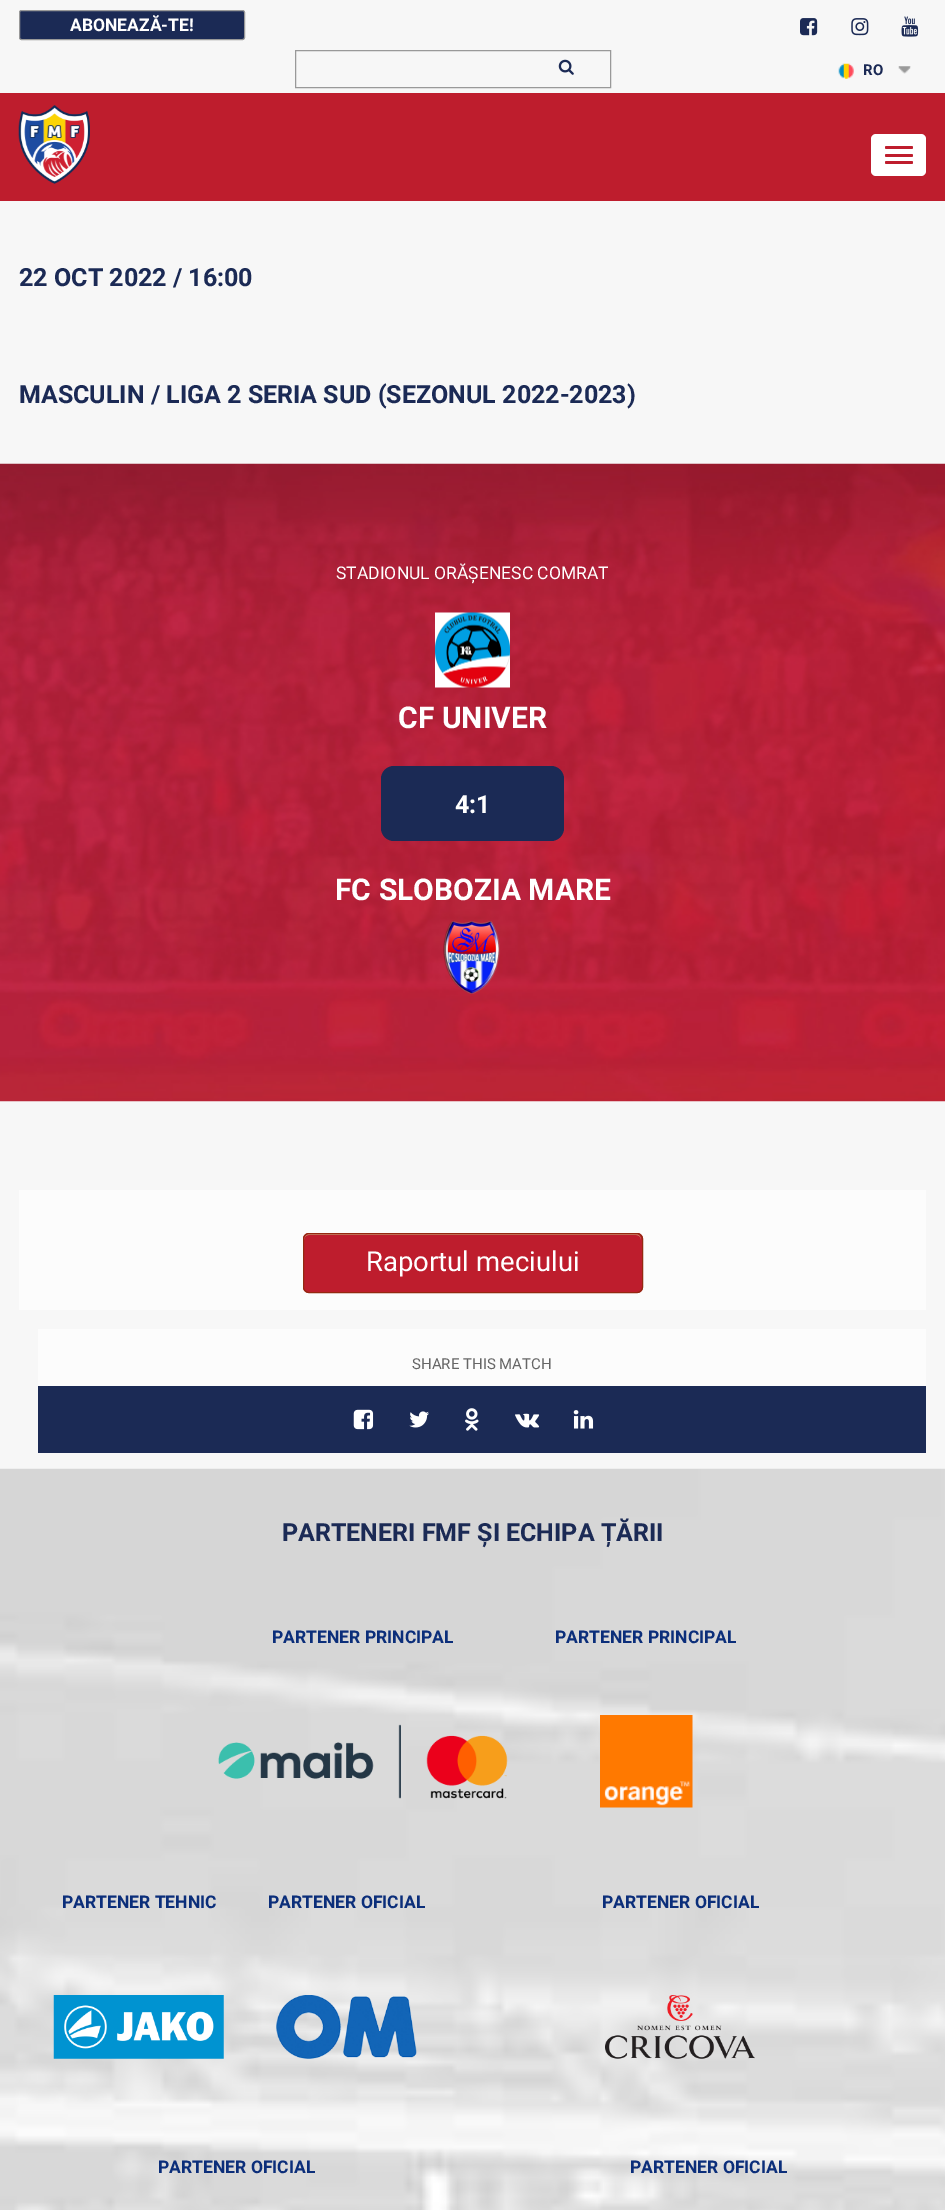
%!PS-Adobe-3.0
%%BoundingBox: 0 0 945 2210
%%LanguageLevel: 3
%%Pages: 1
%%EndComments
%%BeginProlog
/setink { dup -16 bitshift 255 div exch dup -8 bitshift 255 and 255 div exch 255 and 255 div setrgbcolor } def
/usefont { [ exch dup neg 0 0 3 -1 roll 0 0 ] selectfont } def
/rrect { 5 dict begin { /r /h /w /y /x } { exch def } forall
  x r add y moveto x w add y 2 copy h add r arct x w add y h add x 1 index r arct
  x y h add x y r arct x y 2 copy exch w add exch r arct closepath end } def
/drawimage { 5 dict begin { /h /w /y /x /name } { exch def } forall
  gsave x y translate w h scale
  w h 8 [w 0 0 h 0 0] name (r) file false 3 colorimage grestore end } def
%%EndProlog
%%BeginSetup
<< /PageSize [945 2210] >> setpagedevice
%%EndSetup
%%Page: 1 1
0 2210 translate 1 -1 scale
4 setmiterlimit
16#F7F7F7 setink
0 0 945 2210 rectfill
16#1B2A55 setink
19.5 10.5 225 29 2 rrect gsave fill grestore
16#999999 setink
stroke
/Roboto-Bold 17.5 usefont
16#FFFFFF setink
70 31 moveto (ABONEAZĂ-TE!) show
(img1.raw) 800 18 18 18 drawimage
(img2.raw) 851 18 18 18 drawimage
(img3.raw) 901 16 18 21 drawimage
16#999999 setink
295.5 50.5 315 37 rectstroke
(img4.raw) 558 59 16 16 drawimage
(img5.raw) 838 63 16 16 drawimage
/Roboto-Bold 15 usefont
16#1B2A55 setink
863 75 moveto (RO) show
(img6.raw) 898 66 13 8 drawimage
16#BE1D2D setink
0 93 945 108 rectfill
(img7.raw) 18 105 72 79 drawimage
16#FFFFFF setink
871 134 55 42 5 rrect fill
16#BE1D2D setink
885 146 28 3 1.5 rrect fill
885 154 28 3 1.5 rrect fill
885 161 28 3 1.5 rrect fill
/Roboto-Bold 25 usefont
16#1B2A55 setink
19 286 moveto (22 OCT 2022 / 16:00) show
19 403 moveto (MASCULIN / LIGA 2 SERIA SUD \(SEZONUL 2022-2023\)) show
(img8.raw) 0 463 945 639 drawimage
/Roboto-Regular 17.5 usefont
16#FFFFFF setink
336 579 moveto (STADIONUL ORĂȘENESC COMRAT) show
(img9.raw) 435 612 75 76 drawimage
/Roboto-Bold 30 usefont
398 728 moveto (CF UNIVER) show
16#1B2A55 setink
381 766 183 75 13 rrect fill
/Roboto-Bold 25 usefont
16#FFFFFF setink
455 813 moveto (4:1) show
/Roboto-Bold 30 usefont
335 900 moveto (FC SLOBOZIA MARE) show
(img10.raw) 443 921 57 73 drawimage
16#FCFCFC setink
19 1190 907 120 rectfill
16#BE1D2D setink
303 1233 340 60 6 rrect fill
16#CF866C setink
309 1235 moveto 636 1235 lineto 639 1235 641 1237 641 1240 curveto 641 1237 639 1234 636 1234 curveto 309 1234 lineto 306 1234 304 1237 304 1240 curveto 304 1237 306 1235 309 1235 curveto closepath fill
16#942911 setink
303.5 1233.5 339 59 5.5 rrect stroke
/Roboto-Regular 27.5 usefont
16#FFFFFF setink
366 1271 moveto (Raportul meciului) show
16#FCFCFC setink
38 1329 888 57 rectfill
/Roboto-Regular 15 usefont
16#666666 setink
412 1369 moveto (SHARE THIS MATCH) show
16#1B2A55 setink
38 1386 888 67 rectfill
(img11.raw) 353 1409 21 21 drawimage
(img12.raw) 409 1411 20 17 drawimage
(img13.raw) 465 1408 14 23 drawimage
(img14.raw) 515 1413 25 15 drawimage
(img15.raw) 573 1410 21 19 drawimage
(img16.raw) 0 1468 945 742 drawimage
/Roboto-Bold 25 usefont
282 1541 moveto (PARTENERI FMF ȘI ECHIPA ȚĂRII) show
/Roboto-Bold 17.5 usefont
16#0B2E7A setink
272 1643 moveto (PARTENER PRINCIPAL) show
(img17.raw) 218 1724 290 75 drawimage
555 1643 moveto (PARTENER PRINCIPAL) show
(img18.raw) 600 1715 93 93 drawimage
62 1908 moveto (PARTENER TEHNIC) show
(img19.raw) 53 1995 171 64 drawimage
268 1908 moveto (PARTENER OFICIAL) show
(img20.raw) 276 1995 141 64 drawimage
602 1908 moveto (PARTENER OFICIAL) show
(img21.raw) 605 1995 150 64 drawimage
158 2173 moveto (PARTENER OFICIAL) show
630 2173 moveto (PARTENER OFICIAL) show
showpage
%%EOF
